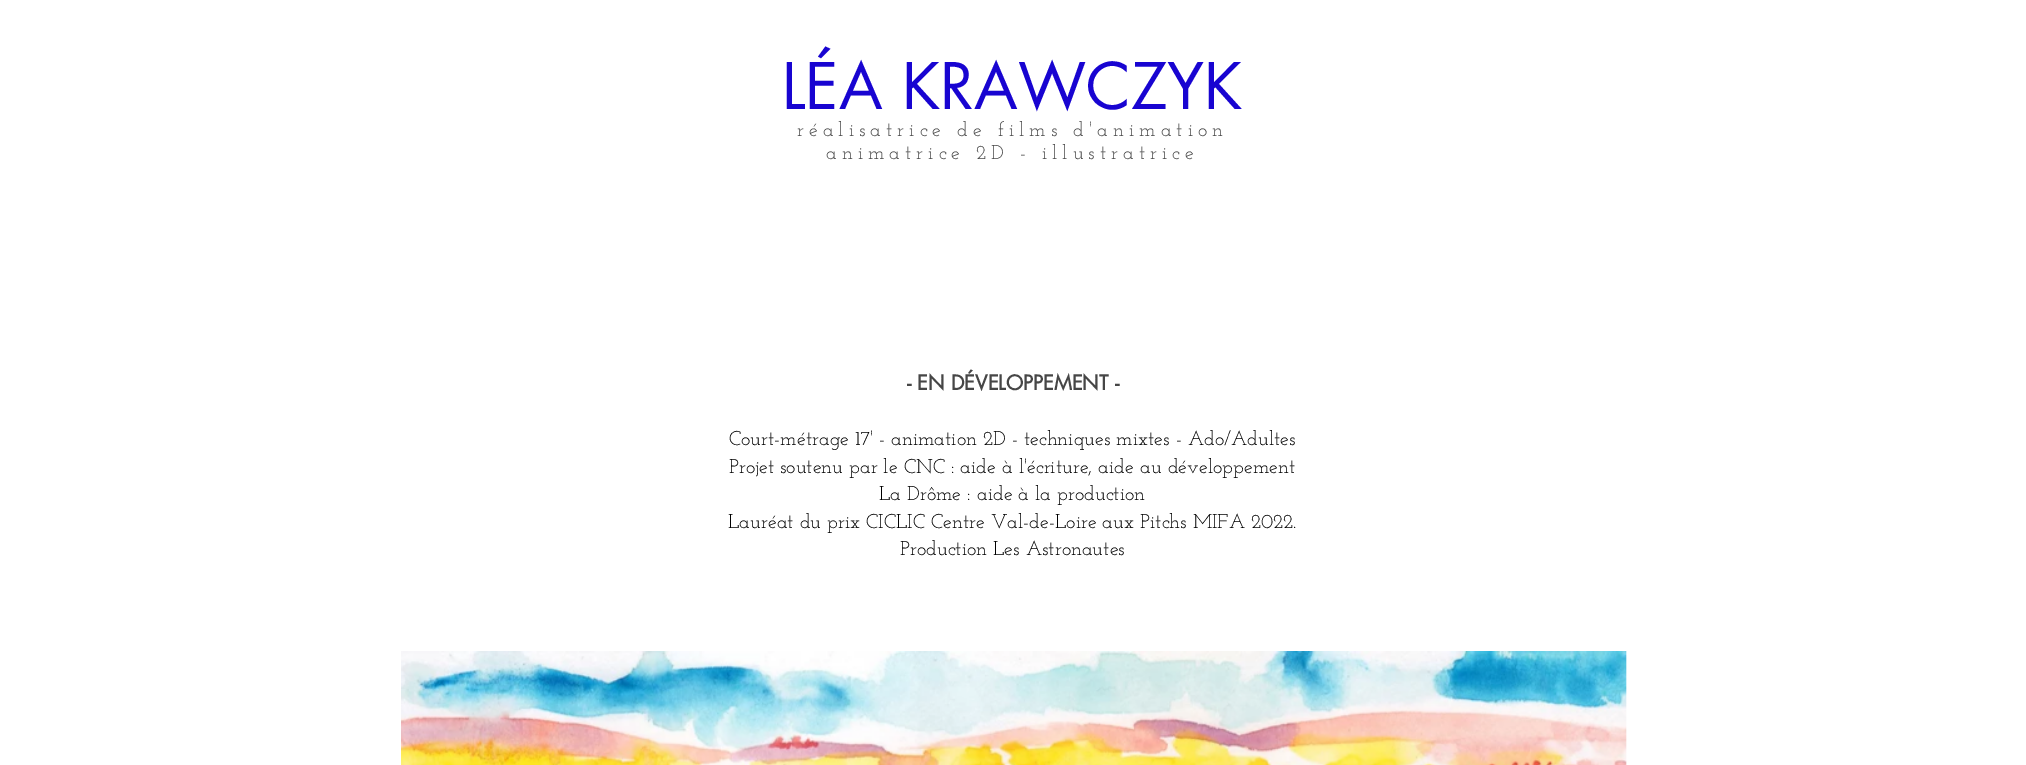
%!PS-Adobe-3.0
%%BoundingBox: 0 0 2026 765
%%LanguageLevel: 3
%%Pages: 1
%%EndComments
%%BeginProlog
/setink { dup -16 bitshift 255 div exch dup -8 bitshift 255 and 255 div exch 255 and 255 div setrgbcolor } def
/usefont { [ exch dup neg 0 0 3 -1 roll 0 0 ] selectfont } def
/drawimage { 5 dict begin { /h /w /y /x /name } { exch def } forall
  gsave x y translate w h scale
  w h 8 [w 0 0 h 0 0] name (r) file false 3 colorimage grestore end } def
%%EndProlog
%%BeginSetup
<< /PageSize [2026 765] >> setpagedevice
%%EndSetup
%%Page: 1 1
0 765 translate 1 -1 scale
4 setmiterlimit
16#FFFFFF setink
0 0 2026 765 rectfill
/futura-Regular 62.5 usefont
16#1804D1 setink
782 109 moveto (LÉA KRAWCZYK) show
/JosefinSlab-Regular 20 usefont
16#464646 setink
797 136 moveto 5 0 (réalisatrice de films d'animation) ashow
826 159 moveto 5 0 (animatrice 2D - illustratrice) ashow
/futura-Bold 20 usefont
907 390 moveto (- EN DÉVELOPPEMENT -) show
/JosefinSlab-Regular 20 usefont
16#000000 setink
[
    [(Court-métrage 17' - animation 2D - techniques mixtes - Ado/Adultes) 729 445]
    [(Projet soutenu par le CNC : aide à l'écriture, aide au développement) 729 473]
    [(La Drôme : aide à la production) 879 500]
    [(Lauréat du prix CICLIC Centre Val-de-Loire aux Pitchs MIFA 2022.) 728 528]
    [(Production Les Astronautes) 900 555]
] { aload pop moveto show } forall
(img1.raw) 401 651 1226 114 drawimage
showpage
%%EOF
